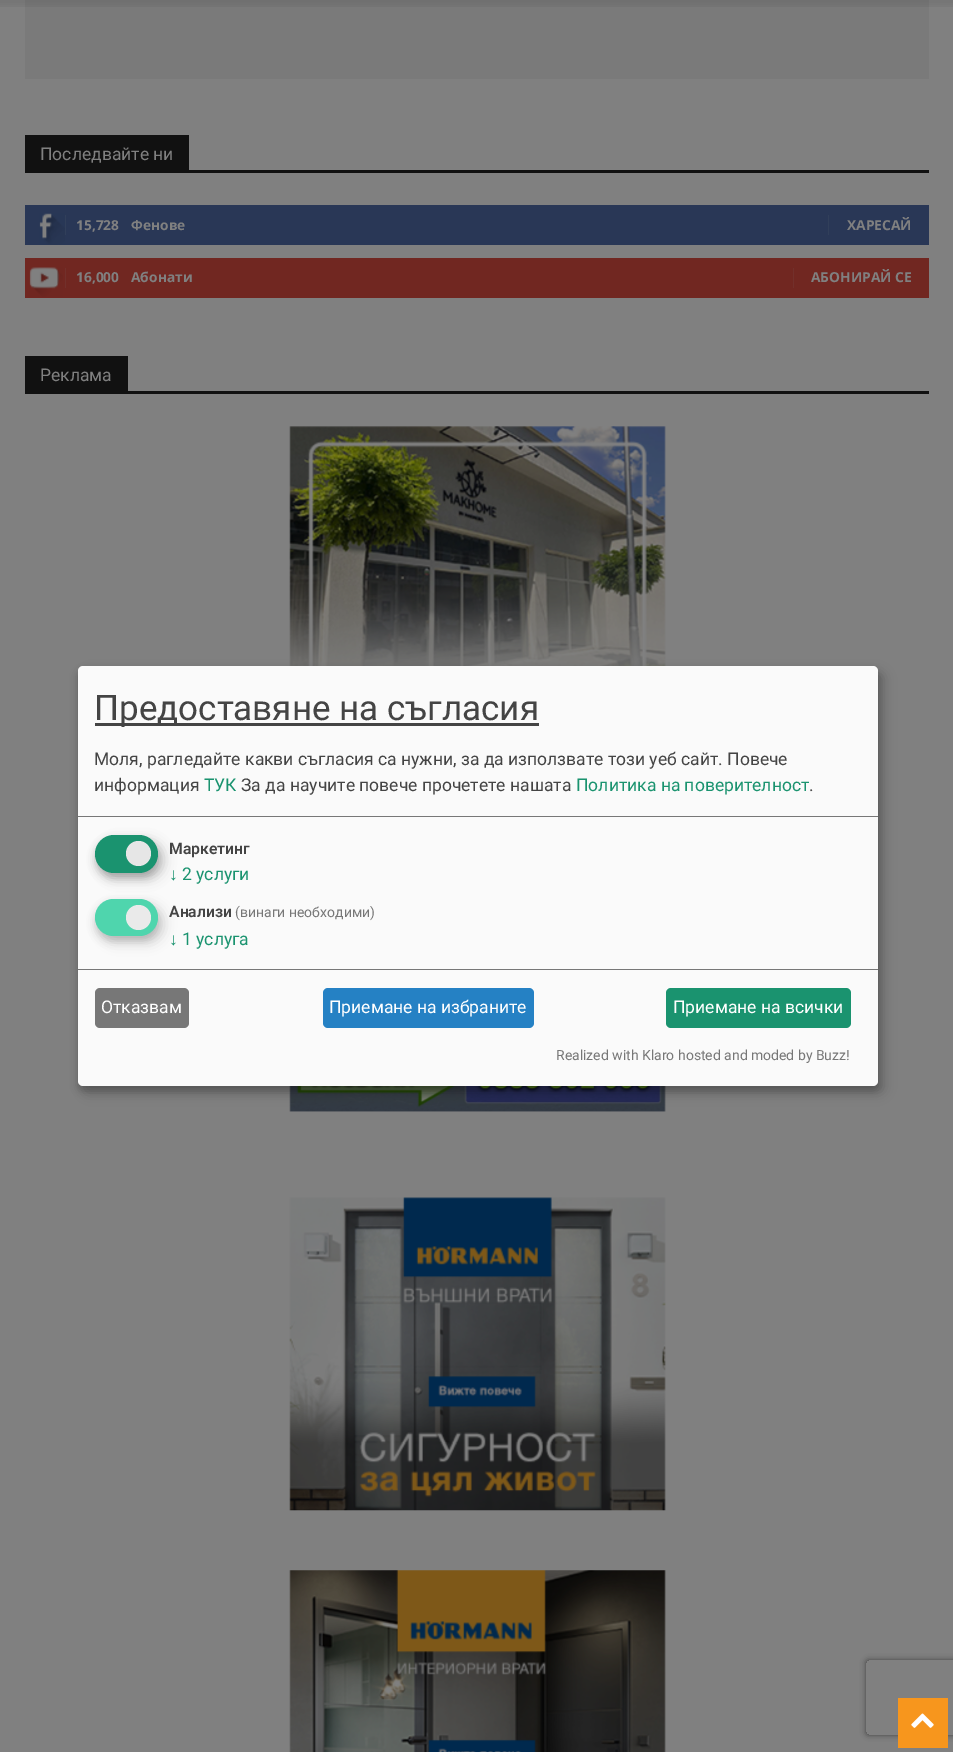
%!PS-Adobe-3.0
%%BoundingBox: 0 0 953 1752
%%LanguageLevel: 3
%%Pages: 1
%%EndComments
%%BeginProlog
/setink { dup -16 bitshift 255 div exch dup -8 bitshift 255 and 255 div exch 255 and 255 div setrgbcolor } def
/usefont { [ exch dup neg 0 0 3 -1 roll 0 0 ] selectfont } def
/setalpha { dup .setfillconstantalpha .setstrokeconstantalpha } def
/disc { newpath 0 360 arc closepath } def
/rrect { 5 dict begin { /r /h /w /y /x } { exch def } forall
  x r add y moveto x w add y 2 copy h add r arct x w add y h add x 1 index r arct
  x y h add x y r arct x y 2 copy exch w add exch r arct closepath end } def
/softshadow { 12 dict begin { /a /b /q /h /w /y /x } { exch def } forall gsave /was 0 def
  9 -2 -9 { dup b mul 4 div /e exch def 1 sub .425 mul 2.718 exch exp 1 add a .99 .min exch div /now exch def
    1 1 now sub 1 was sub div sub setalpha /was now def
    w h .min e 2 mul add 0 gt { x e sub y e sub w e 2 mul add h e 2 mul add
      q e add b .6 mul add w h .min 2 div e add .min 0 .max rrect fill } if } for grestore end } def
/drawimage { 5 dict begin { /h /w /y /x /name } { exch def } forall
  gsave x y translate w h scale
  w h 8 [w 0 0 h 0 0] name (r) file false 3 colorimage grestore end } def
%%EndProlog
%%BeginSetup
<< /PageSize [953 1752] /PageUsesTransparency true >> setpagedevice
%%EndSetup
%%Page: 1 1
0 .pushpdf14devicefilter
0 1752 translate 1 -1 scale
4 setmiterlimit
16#808080 setink
0 0 953 1752 rectfill
16#7A7A7A setink
25 0 904 79 rectfill
(img1.raw) 0 0 953 7 drawimage
16#111111 setink
25 170 904 3 rectfill
25 135 164 35 rectfill
/Roboto-Regular 17.5 usefont
16#808080 setink
40 160 moveto (Последвайте ни) show
16#293756 setink
25 205 904 40 rectfill
(img2.raw) 39 213 26 32 drawimage
16#313F5A setink
65 215 1 20 rectfill
/OpenSans-Bold 13.75 usefont
16#808080 setink
76 230 moveto (15,728) show
131 230 moveto (Фенове) show
16#313F5A setink
828 215 1 20 rectfill
16#808080 setink
847 230 moveto (ХАРЕСАЙ) show
16#712721 setink
25 258 904 40 rectfill
(img3.raw) 29 267 34 30 drawimage
16#72302B setink
65 268 1 20 rectfill
16#808080 setink
76 282 moveto (16,000) show
131 282 moveto (Абонати) show
16#72302B setink
793 268 1 20 rectfill
16#808080 setink
811 282 moveto (АБОНИРАЙ СЕ) show
16#111111 setink
25 391 904 3 rectfill
25 356 103 35 rectfill
/Roboto-Regular 17.5 usefont
16#808080 setink
40 381 moveto (Реклама) show
(img4.raw) 289 426 377 240 drawimage
(img5.raw) 289 1086 377 26 drawimage
(img6.raw) 289 1197 377 314 drawimage
(img7.raw) 289 1570 377 182 drawimage
16#000000 setink
84 673 800 420 5 6 0.19 softshadow
78 671 800 420 5 4 0.2 softshadow
16#FAFAFA setink
78 666 800 420 5 rrect fill
16#777777 setink
78 816 800 1 rectfill
16#444444 setink
95 723 444 3 rectfill
/Roboto-Regular 35 usefont
94 720 moveto (Предоставяне на съгласия) show
/Roboto-Regular 17.5 usefont
94 765 moveto (Моля, рагледайте какви съгласия са нужни, за да използвате този уеб сайт. Повече) show
94 791 moveto (информация) show
16#1A936F setink
204 791 moveto (ТУК) show
16#444444 setink
241 791 moveto (За да научите повече прочетете нашата) show
16#1A936F setink
576 791 moveto (Политика на поверителност) show
16#444444 setink
809 791 moveto (.) show
16#000000 setink
101 841 63 38 19 6 0.19 softshadow
95 840 63 38 19 4 0.2 softshadow
16#1A936F setink
95 835 63 38 19 rrect fill
16#E6E6E6 setink
138.5 853.5 12.5 disc fill
/Roboto-SemiBold 15.75 usefont
16#444444 setink
169 854 moveto (Маркетинг) show
/LiberationSans-Regular 17.5 usefont
16#1A936F setink
169 880 moveto (↓) show
/Roboto-Regular 17.5 usefont
182 880 moveto (2 услуги) show
16#000000 setink
101 905 63 38 19 6 0.15 softshadow
16#323232 setink
95 904 63 37 18.5 4 0.2 softshadow
16#4FD5AD setink
95 899 63 37 18.5 rrect fill
16#EAEAEA setink
138.5 917.5 12.5 disc fill
/Roboto-SemiBold 15.75 usefont
16#444444 setink
169 917 moveto (Анализи) show
/Roboto-Regular 14 usefont
16#777777 setink
235 917 moveto (\(винаги необходими\)) show
/LiberationSans-Regular 17.5 usefont
16#1A936F setink
169 945 moveto (↓) show
/Roboto-Regular 17.5 usefont
182 945 moveto (1 услуга) show
16#777777 setink
78 969 800 1 rectfill
95 988 94 40 5 rrect fill
16#FFFFFF setink
101 1013 moveto (Отказвам) show
16#2581C4 setink
323 988 211 40 5 rrect fill
16#FFFFFF setink
329 1013 moveto (Приемане на избраните) show
16#1A936F setink
666 988 185 40 5 rrect fill
16#FFFFFF setink
673 1013 moveto (Приемане на всички) show
/Roboto-Regular 14 usefont
16#777777 setink
556 1060 moveto (Realized with Klaro hosted and moded by Buzz!) show
gsave
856 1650 moveto 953 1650 lineto 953 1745 lineto 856 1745 lineto closepath 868.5 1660 moveto 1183.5 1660 lineto 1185 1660 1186 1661 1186 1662.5 curveto 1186 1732.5 lineto 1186 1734 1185 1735 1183.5 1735 curveto 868.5 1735 lineto 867 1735 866 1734 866 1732.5 curveto 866 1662.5 lineto 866 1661 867 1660 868.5 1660 curveto closepath eoclip newpath
16#404040 setink
866 1660 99 75 2.5 3 1 softshadow
grestore
16#F7961D setink
898 1698 50 50 rectfill
(img8.raw) 911 1713 23 15 drawimage
.poppdf14devicefilter showpage
%%EOF
